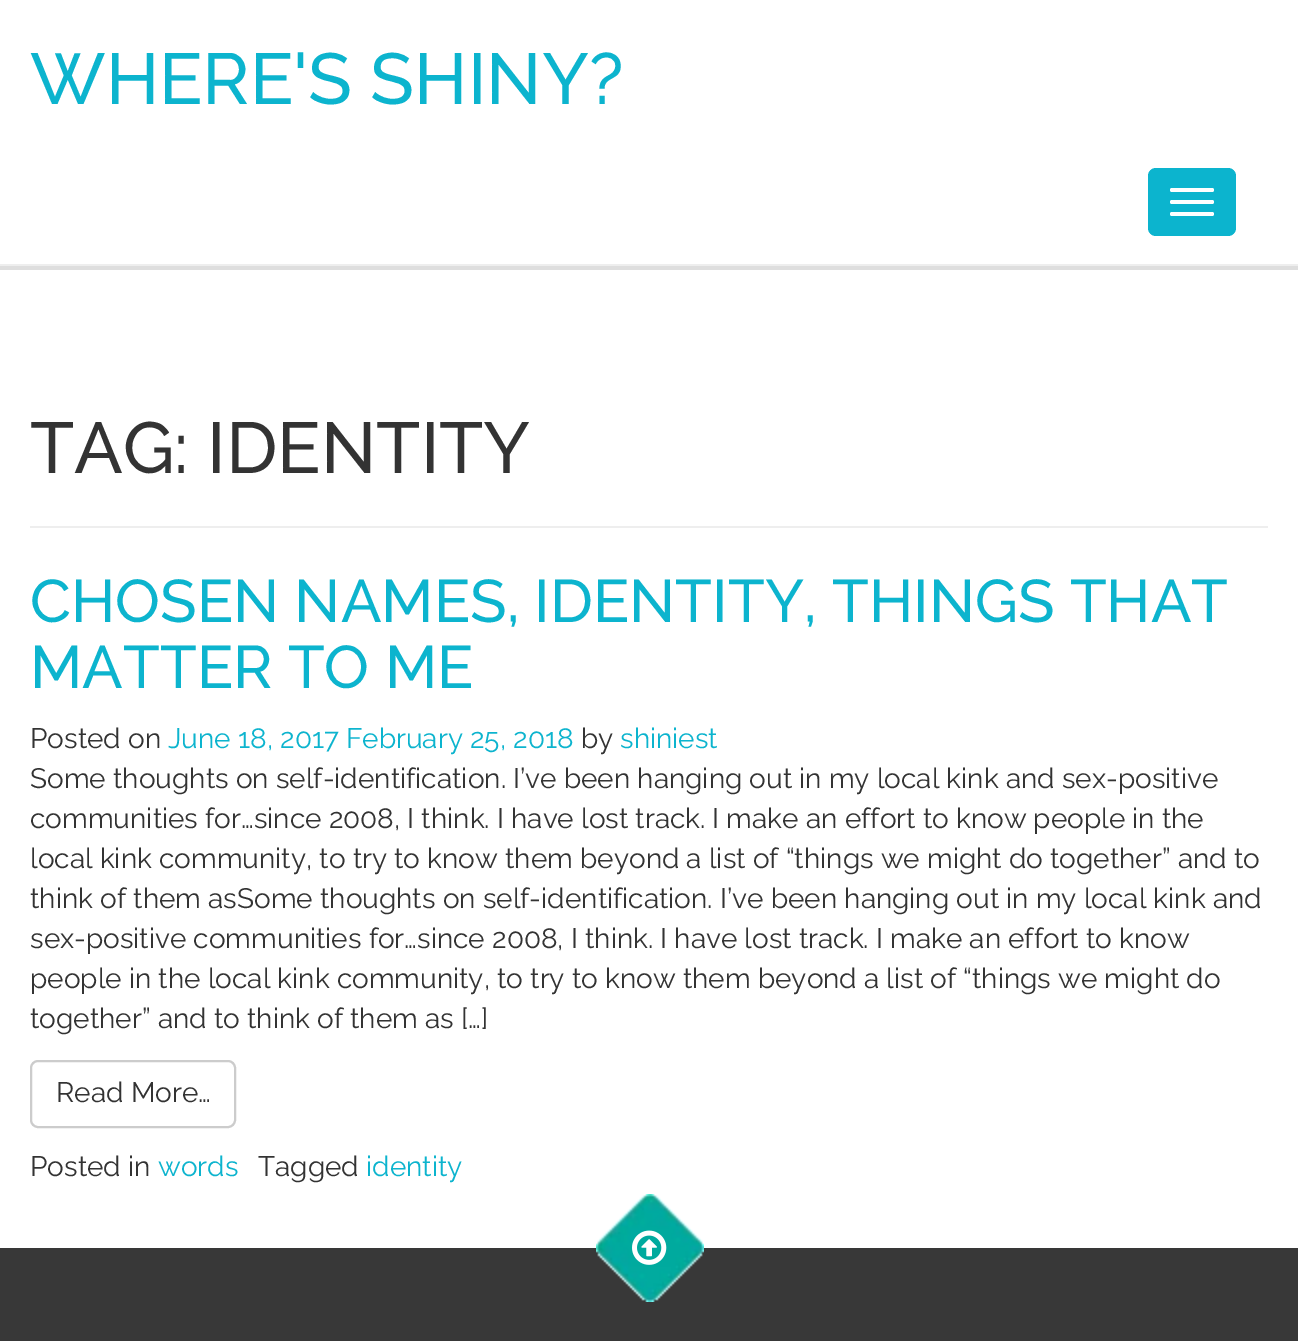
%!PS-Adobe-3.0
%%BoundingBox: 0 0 1298 1341
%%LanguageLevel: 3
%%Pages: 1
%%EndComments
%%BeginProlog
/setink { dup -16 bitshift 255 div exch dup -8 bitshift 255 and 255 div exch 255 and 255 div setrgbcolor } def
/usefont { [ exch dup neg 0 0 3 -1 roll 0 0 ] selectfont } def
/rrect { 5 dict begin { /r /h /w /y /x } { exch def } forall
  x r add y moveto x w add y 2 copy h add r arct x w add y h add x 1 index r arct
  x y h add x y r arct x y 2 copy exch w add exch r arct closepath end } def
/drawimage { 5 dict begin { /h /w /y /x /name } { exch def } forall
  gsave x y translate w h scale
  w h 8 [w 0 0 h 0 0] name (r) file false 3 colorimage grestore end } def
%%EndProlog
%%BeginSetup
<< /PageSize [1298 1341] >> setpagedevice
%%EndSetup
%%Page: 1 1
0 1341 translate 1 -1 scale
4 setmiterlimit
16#FFFFFF setink
0 0 1298 1341 rectfill
/Raleway-Medium 72 usefont
16#0CB4CE setink
30 104 moveto (WHERE'S SHINY?) show
1148 168 88 68 8 rrect fill
16#FFFFFF setink
1170 188 44 4 2 rrect fill
1170 200 44 4 2 rrect fill
1170 212 44 4 2 rrect fill
[
    [0 266 1298 4 16#DEDEDE]
    [0 264 1298 2 16#EEEEEE]
    [30 526 1238 2 16#EEEEEE]
] { aload pop setink rectfill } forall
16#333333 setink
30 473 moveto (TAG: IDENTITY) show
/Raleway-Medium 60 usefont
16#0CB4CE setink
30 622 moveto (CHOSEN NAMES, IDENTITY, THINGS THAT) show
30 688 moveto (MATTER TO ME) show
/Raleway-Regular 28 usefont
16#333333 setink
30 748 moveto (Posted on) show
16#0CB4CE setink
168 748 moveto (June 18, 2017 February 25, 2018) show
16#333333 setink
581 748 moveto (by) show
16#0CB4CE setink
620 748 moveto (shiniest) show
16#333333 setink
[
    [(Some thoughts on self-identification. I’ve been hanging out in my local kink and sex-positive) 30 788]
    [(communities for…since 2008, I think. I have lost track. I make an effort to know people in the) 30 828]
    [(local kink community, to try to know them beyond a list of “things we might do together” and to) 30 868]
    [(think of them asSome thoughts on self-identification. I’ve been hanging out in my local kink and) 30 908]
    [(sex-positive communities for…since 2008, I think. I have lost track. I make an effort to know) 30 948]
    [(people in the local kink community, to try to know them beyond a list of “things we might do) 30 988]
    [(together” and to think of them as […]) 30 1028]
] { aload pop moveto show } forall
16#CCCCCC setink
2 setlinewidth
31 1061 204 66 7 rrect stroke
16#333333 setink
56 1102 moveto (Read More…) show
30 1176 moveto (Posted in) show
16#0CB4CE setink
158 1176 moveto (words) show
16#333333 setink
258 1176 moveto (Tagged) show
16#0CB4CE setink
366 1176 moveto (identity) show
16#383838 setink
0 1248 1298 93 rectfill
(img1.raw) 596 1194 108 108 drawimage
(img2.raw) 632 1230 35 35 drawimage
showpage
%%EOF
